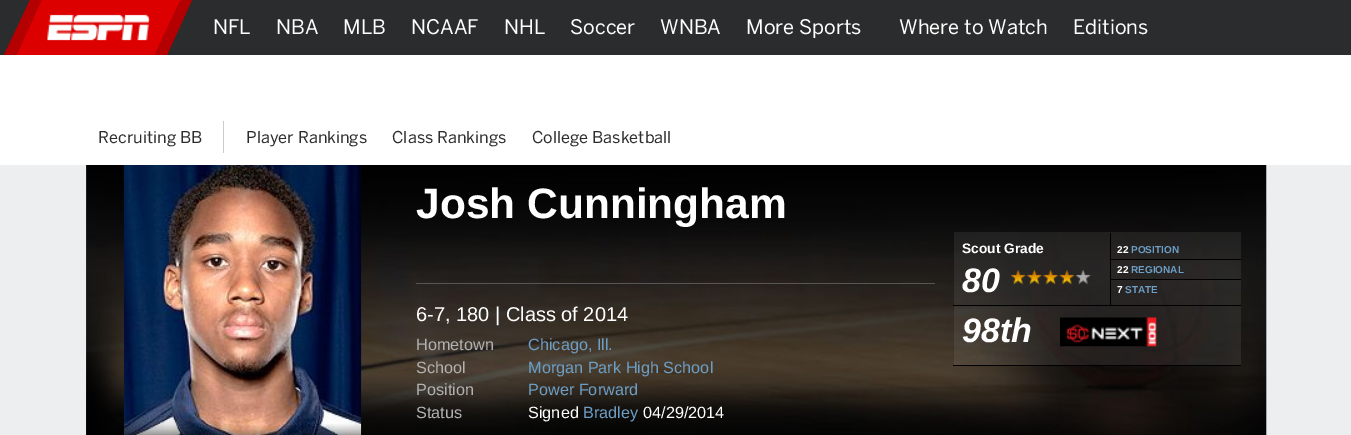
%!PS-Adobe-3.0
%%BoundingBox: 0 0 1351 435
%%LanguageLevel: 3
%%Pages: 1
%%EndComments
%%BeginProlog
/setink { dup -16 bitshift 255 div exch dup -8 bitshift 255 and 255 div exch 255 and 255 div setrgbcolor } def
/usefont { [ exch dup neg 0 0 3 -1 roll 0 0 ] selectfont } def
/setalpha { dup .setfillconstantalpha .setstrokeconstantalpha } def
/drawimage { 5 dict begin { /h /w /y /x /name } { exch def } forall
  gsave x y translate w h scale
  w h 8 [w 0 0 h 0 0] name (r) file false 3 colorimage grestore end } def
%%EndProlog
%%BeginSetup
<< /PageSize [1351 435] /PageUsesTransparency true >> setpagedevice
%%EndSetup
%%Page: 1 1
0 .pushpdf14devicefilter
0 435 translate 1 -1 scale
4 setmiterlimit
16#EDEEF0 setink
0 0 1351 435 rectfill
16#FFFFFF setink
0 55 1351 110 rectfill
16#2B2C2D setink
0 0 1351 55 rectfill
16#B40000 setink
30 0 moveto 192 0 lineto 167 55 lineto 4 55 lineto closepath fill
16#DD0000 setink
42 0 moveto 180 0 lineto 154 55 lineto 17 55 lineto closepath fill
(img1.raw) 47 14 103 27 drawimage
/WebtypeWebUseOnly-Regular 20 usefont
16#FFFFFF setink
[
    [(NFL) 213 34]
    [(NBA) 276 34]
    [(MLB) 343 34]
    [(NCAAF) 411 34]
    [(NHL) 504 34]
    [(Soccer) 570 34]
    [(WNBA) 660 34]
    [(More Sports) 746 34]
    [(Where to Watch) 899 34]
    [(Editions) 1073 34]
] { aload pop moveto show } forall
/WebtypeWebUseOnly-Regular 16.25 usefont
16#2B2C2D setink
98 143 moveto (Recruiting BB) show
16#CBCCCE setink
223 121 1 32 rectfill
16#2B2C2D setink
[
    [(Player Rankings) 246 143]
    [(Class Rankings) 392 143]
    [(College Basketball) 532 143]
] { aload pop moveto show } forall
(img2.raw) 86 165 1181 270 drawimage
(img3.raw) 86 165 1181 270 drawimage
(img4.raw) 123 165 239 270 drawimage
/LiberationSans-Bold 42.5 usefont
16#FFFFFF setink
416 218 moveto (Josh Cunningham) show
0.1 setalpha
[
    [954 232 287 133 16#BABABA]
] { aload pop setink rectfill } forall
1 setalpha
[
    [953 305 288 1 16#000000]
    [1110 259 131 1 16#000000]
    [1110 279 131 1 16#000000]
    [1110 233 1 72 16#000000]
] { aload pop setink rectfill } forall
/LiberationSans-Bold 13.75 usefont
16#FFFFFF setink
962 253 moveto (Scout Grade) show
/LiberationSans-BoldItalic 34 usefont
962 292 moveto (80) show
(img5.raw) 1010 269 81 16 drawimage
/LiberationSans-Bold 10 usefont
1117 253 moveto (22) show
16#6C9EC6 setink
1131 253 moveto (POSITION) show
16#FFFFFF setink
1117 273 moveto (22) show
16#6C9EC6 setink
1131 273 moveto (REGIONAL) show
16#FFFFFF setink
1117 293 moveto (7) show
16#6C9EC6 setink
1125 293 moveto (STATE) show
16#000000 setink
953 365 288 1 rectfill
/LiberationSans-BoldItalic 34 usefont
16#FFFFFF setink
962 342 moveto (98th) show
(img6.raw) 1060 317 97 30 drawimage
16#565656 setink
416 283 519 1 rectfill
/LiberationSans-Regular 20 usefont
16#FFFFFF setink
416 321 moveto (6-7, 180 | Class of 2014) show
/LiberationSans-Regular 16.25 usefont
16#B2B2B2 setink
416 350 moveto (Hometown) show
16#6C9EC6 setink
528 350 moveto (Chicago, Ill.) show
16#B2B2B2 setink
416 373 moveto (School) show
16#6C9EC6 setink
528 373 moveto (Morgan Park High School) show
16#B2B2B2 setink
416 395 moveto (Position) show
16#6C9EC6 setink
528 395 moveto (Power Forward) show
16#B2B2B2 setink
416 418 moveto (Status) show
16#FFFFFF setink
528 418 moveto (Signed) show
16#6C9EC6 setink
583 418 moveto (Bradley) show
16#FFFFFF setink
643 418 moveto (04/29/2014) show
(img7.raw) 86 352 276 83 drawimage
.poppdf14devicefilter showpage
%%EOF
